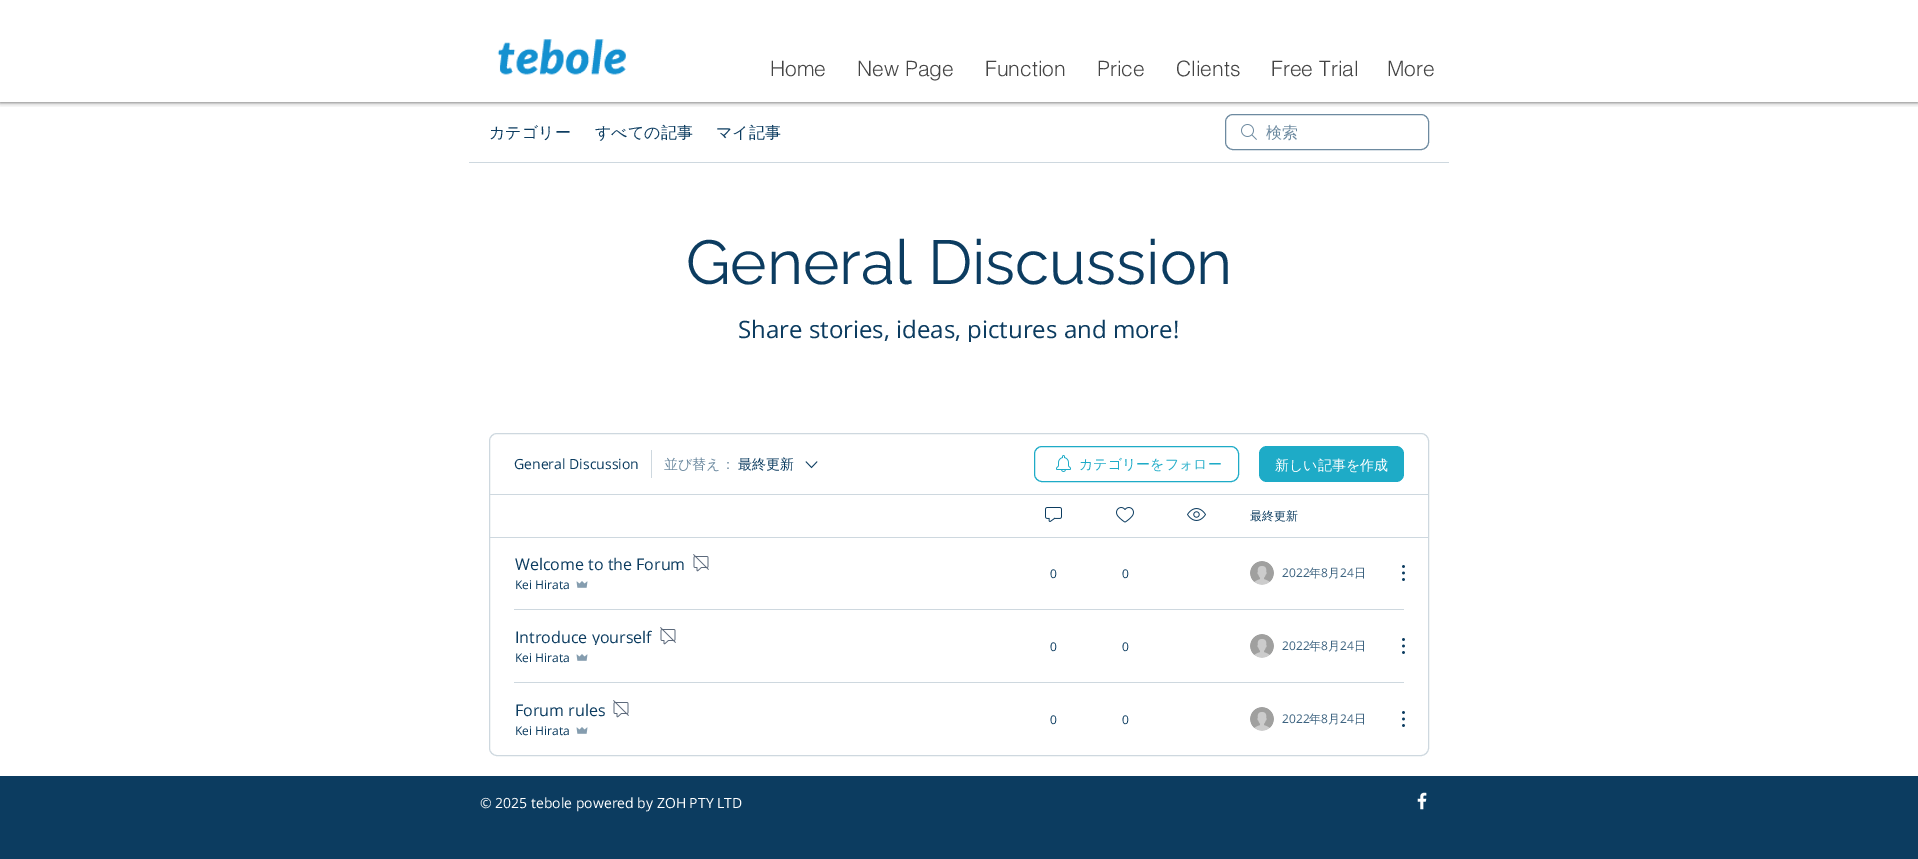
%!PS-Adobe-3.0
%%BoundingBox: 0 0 1918 859
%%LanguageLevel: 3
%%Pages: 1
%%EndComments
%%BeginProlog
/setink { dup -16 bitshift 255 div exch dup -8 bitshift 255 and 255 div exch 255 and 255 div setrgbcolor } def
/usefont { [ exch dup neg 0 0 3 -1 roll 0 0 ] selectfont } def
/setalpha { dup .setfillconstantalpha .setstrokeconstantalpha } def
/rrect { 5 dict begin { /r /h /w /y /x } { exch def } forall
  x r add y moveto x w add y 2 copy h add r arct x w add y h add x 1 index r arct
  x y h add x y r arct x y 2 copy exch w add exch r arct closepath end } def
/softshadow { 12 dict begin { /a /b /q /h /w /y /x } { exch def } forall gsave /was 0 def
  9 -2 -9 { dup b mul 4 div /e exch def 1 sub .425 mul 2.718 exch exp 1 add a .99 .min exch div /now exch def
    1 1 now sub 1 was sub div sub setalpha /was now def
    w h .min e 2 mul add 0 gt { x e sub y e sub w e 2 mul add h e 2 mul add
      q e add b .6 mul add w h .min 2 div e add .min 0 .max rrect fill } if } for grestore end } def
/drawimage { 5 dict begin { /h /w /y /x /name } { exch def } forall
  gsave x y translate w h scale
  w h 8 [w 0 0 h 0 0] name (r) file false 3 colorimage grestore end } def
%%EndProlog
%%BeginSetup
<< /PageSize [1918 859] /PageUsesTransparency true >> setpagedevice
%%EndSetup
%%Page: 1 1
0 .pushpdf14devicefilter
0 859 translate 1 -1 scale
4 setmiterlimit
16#FFFFFF setink
0 0 1918 859 rectfill
gsave
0 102 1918 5 rectclip
16#000000 setink
0 0 1918 102 0 2.5 0.7 softshadow
grestore
(img1.raw) 497 39 129 36 drawimage
/helvetica-Light 21 usefont
16#444444 setink
[
    [(Home) 770 76]
    [(New Page) 857 76]
    [(Function) 985 76]
    [(Price) 1097 76]
    [(Clients) 1176 76]
    [(Free Trial) 1271 76]
    [(More) 1387 76]
] { aload pop moveto show } forall
16#CED8DF setink
469 162 980 1 rectfill
/WenQuanYiZenHei-Medium 16 usefont
16#0C3C60 setink
[
    [(カテゴリー) 489 138]
    [(すべての記事) 595 138]
    [(マイ記事) 716 138]
] { aload pop moveto show } forall
(img2.raw) 1241 124 16 16 drawimage
16#6D8AA0 setink
1225.5 114.5 203 35 7.5 rrect stroke
1266 138 moveto (検索) show
/Raleway-Regular 62 usefont
16#0C3C60 setink
686 284 moveto (General Discussion) show
gsave
619 316 680 26 rectclip
/OpenSans-Regular 24 usefont
738 338 moveto (Share stories, ideas, pictures and more!) show
grestore
16#CED8DF setink
489.5 433.5 939 322 7.5 rrect stroke
/OpenSans-Regular 14 usefont
16#0C3C60 setink
514 469 moveto (General Discussion) show
16#CED8DF setink
651 450 1 28 rectfill
/WenQuanYiZenHei-Medium 14 usefont
16#6D8AA0 setink
664 469 moveto (並び替え：) show
16#0C3C60 setink
738 469 moveto (最終更新) show
(img3.raw) 805 461 13 8 drawimage
16#1EABC7 setink
1034.5 446.5 204 35 7.5 rrect stroke
(img4.raw) 1056 455 15 17 drawimage
1079 469 moveto (カテゴリーをフォロー) show
1259 446 145 36 8 rrect fill
16#FFFFFF setink
1275 470 moveto (新しい記事を作成) show
16#CED8DF setink
490 494 938 1 rectfill
(img5.raw) 1045 507 17 15 drawimage
(img6.raw) 1116 507 18 16 drawimage
(img7.raw) 1187 508 19 13 drawimage
/WenQuanYiZenHei-Medium 12 usefont
16#0C3C60 setink
1250 520 moveto (最終更新) show
16#CED8DF setink
490 537 938 1 rectfill
/OpenSans-Regular 16 usefont
16#0C3C60 setink
515 570 moveto (Welcome to the Forum) show
(img8.raw) 693 554 16 18 drawimage
/OpenSans-Regular 12 usefont
515 589 moveto (Kei Hirata) show
(img9.raw) 576 581 12 7 drawimage
1050 578 moveto (0) show
1122 578 moveto (0) show
(img10.raw) 1250 561 24 24 drawimage
16#3D6380 setink
1282 577 moveto (2022) show
/WenQuanYiZenHei-Medium 12 usefont
1309 577 moveto (年) show
/OpenSans-Regular 12 usefont
1321 577 moveto (8) show
/WenQuanYiZenHei-Medium 12 usefont
1328 577 moveto (月) show
/OpenSans-Regular 12 usefont
1340 577 moveto (24) show
/WenQuanYiZenHei-Medium 12 usefont
1354 577 moveto (日) show
(img11.raw) 1402 565 3 16 drawimage
16#CED8DF setink
514 609 890 1 rectfill
gsave
515 629 137 16 rectclip
/OpenSans-Regular 16 usefont
16#0C3C60 setink
515 643 moveto (Introduce yourself) show
grestore
(img8.raw) 660 627 16 18 drawimage
/OpenSans-Regular 12 usefont
16#0C3C60 setink
515 662 moveto (Kei Hirata) show
(img9.raw) 576 654 12 7 drawimage
1050 651 moveto (0) show
1122 651 moveto (0) show
(img10.raw) 1250 634 24 24 drawimage
16#3D6380 setink
1282 650 moveto (2022) show
/WenQuanYiZenHei-Medium 12 usefont
1309 650 moveto (年) show
/OpenSans-Regular 12 usefont
1321 650 moveto (8) show
/WenQuanYiZenHei-Medium 12 usefont
1328 650 moveto (月) show
/OpenSans-Regular 12 usefont
1340 650 moveto (24) show
/WenQuanYiZenHei-Medium 12 usefont
1354 650 moveto (日) show
(img11.raw) 1402 638 3 16 drawimage
16#CED8DF setink
514 682 890 1 rectfill
/OpenSans-Regular 16 usefont
16#0C3C60 setink
515 716 moveto (Forum rules) show
(img8.raw) 613 700 16 18 drawimage
/OpenSans-Regular 12 usefont
515 735 moveto (Kei Hirata) show
(img9.raw) 576 727 12 7 drawimage
1050 724 moveto (0) show
1122 724 moveto (0) show
(img10.raw) 1250 707 24 24 drawimage
16#3D6380 setink
1282 723 moveto (2022) show
/WenQuanYiZenHei-Medium 12 usefont
1309 723 moveto (年) show
/OpenSans-Regular 12 usefont
1321 723 moveto (8) show
/WenQuanYiZenHei-Medium 12 usefont
1328 723 moveto (月) show
/OpenSans-Regular 12 usefont
1340 723 moveto (24) show
/WenQuanYiZenHei-Medium 12 usefont
1354 723 moveto (日) show
(img11.raw) 1402 711 3 16 drawimage
16#0C3C60 setink
0 776 1918 83 rectfill
/OpenSans-Regular 14 usefont
16#FFFFFF setink
480 808 moveto (© 2025 tebole powered by ZOH PTY LTD) show
(img12.raw) 1417 792 10 18 drawimage
.poppdf14devicefilter showpage
%%EOF
